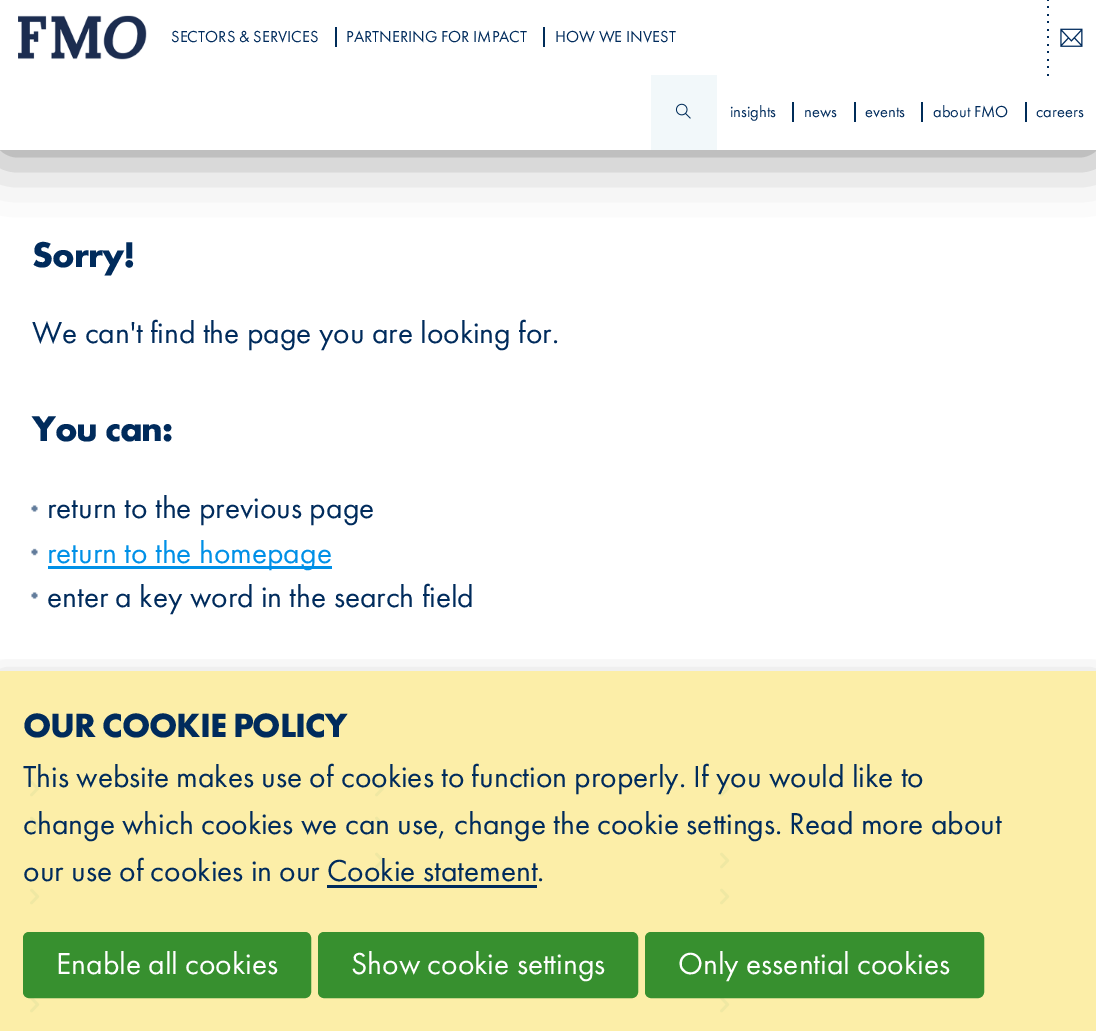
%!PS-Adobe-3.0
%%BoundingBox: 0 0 1096 1031
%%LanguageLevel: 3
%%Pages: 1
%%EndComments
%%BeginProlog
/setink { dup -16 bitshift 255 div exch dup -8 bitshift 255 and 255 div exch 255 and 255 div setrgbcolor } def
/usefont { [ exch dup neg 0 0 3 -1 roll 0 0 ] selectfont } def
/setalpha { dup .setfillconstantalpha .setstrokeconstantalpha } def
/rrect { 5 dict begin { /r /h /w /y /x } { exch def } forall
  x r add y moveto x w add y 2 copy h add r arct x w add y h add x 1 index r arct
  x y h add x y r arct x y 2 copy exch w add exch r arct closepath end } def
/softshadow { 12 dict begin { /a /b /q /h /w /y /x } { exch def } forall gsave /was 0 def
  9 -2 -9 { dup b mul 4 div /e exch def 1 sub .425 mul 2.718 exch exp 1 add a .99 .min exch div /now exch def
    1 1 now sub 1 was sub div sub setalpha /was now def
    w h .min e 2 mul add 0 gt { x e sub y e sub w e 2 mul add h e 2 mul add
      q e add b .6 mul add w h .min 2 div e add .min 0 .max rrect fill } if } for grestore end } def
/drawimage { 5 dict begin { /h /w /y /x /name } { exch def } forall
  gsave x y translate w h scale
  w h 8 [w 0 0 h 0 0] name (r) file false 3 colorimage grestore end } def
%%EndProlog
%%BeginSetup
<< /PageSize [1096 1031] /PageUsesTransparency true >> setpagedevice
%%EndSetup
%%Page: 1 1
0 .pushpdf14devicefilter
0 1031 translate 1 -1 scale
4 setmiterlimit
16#FFFFFF setink
0 0 1096 1031 rectfill
16#FCEEA8 setink
0 671 1096 360 rectfill
16#000000 setink
0 0 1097 150 0 30 0.5 softshadow
16#FFFFFF setink
0 0 1096 150 rectfill
(img1.raw) 18 15 129 45 drawimage
/FuturaPT-Regular 16.5 usefont
16#002B5C setink
171 42 moveto (SECTORS & SERVICES) show
16#002C59 setink
335 27 2 20 rectfill
16#002B5C setink
346 42 moveto (PARTNERING FOR IMPACT) show
16#002C59 setink
543 27 2 20 rectfill
16#002B5C setink
555 42 moveto (HOW WE INVEST) show
[
    [1047 0 2 1 16#002B5A]
    [1047 6 2 2 16#002B5A]
    [1047 14 2 2 16#002B5A]
    [1047 21 2 2 16#002B5A]
    [1047 29 2 2 16#002B5A]
    [1047 36 2 2 16#002B5A]
    [1047 44 2 2 16#002B5A]
    [1047 51 2 2 16#002B5A]
    [1047 59 2 2 16#002B5A]
    [1047 66 2 2 16#002B5A]
    [1047 74 2 2 16#002B5A]
] { aload pop setink rectfill } forall
(img2.raw) 1060 28 23 19 drawimage
16#F2F8FA setink
651 75 66 75 rectfill
(img3.raw) 675 103 16 16 drawimage
16#002B5C setink
730 117 moveto (insights) show
16#002C59 setink
792 102 2 20 rectfill
16#002B5C setink
804 117 moveto (news) show
16#002C59 setink
854 102 2 20 rectfill
16#002B5C setink
865 117 moveto (events) show
16#002C59 setink
921 102 2 20 rectfill
16#002B5C setink
933 117 moveto (about FMO) show
16#002C59 setink
1025 102 2 20 rectfill
16#002B5C setink
1036 117 moveto (careers) show
/FuturaPT-Bold 37 usefont
32 267 moveto -1 0 (Sorry!) ashow
/FuturaPT-Regular 31.5 usefont
32 343 moveto (We can't find the page you are looking for.) show
/FuturaPT-Bold 37 usefont
32 441 moveto -1 0 (You can:) ashow
(img4.raw) 31 505 7 7 drawimage
/FuturaPT-Regular 31.5 usefont
47 518 moveto (return to the previous page) show
(img5.raw) 31 548 7 8 drawimage
16#0090E7 setink
48 566 284 3 rectfill
47 563 moveto (return to the homepage) show
(img4.raw) 31 592 7 7 drawimage
16#002B5C setink
47 607 moveto (enter a key word in the search field) show
(img6.raw) 30 780 10 17 drawimage
(img6.raw) 30 816 10 17 drawimage
(img6.raw) 30 888 10 17 drawimage
(img7.raw) 30 998 10 15 drawimage
(img6.raw) 375 780 10 17 drawimage
(img6.raw) 375 816 10 17 drawimage
(img6.raw) 375 852 10 17 drawimage
(img6.raw) 720 780 10 17 drawimage
(img6.raw) 720 816 10 17 drawimage
(img6.raw) 720 852 10 17 drawimage
(img6.raw) 720 888 10 17 drawimage
(img7.raw) 720 998 10 15 drawimage
gsave
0 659 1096 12 rectclip
16#000000 setink
0 678 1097 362 0 15 0.2 softshadow
grestore
/FuturaPT-Bold 34.75 usefont
23 737 moveto -1 0 (OUR COOKIE POLICY) ashow
/FuturaPT-Regular 31.5 usefont
[
    [(This website makes use of cookies to function properly. If you would like to) 23 787]
    [(change which cookies we can use, change the cookie settings. Read more about) 23 834]
    [(our use of cookies in our Cookie statement.) 23 881]
] { aload pop moveto show } forall
327 885 210 3 rectfill
16#37902F setink
24 933 286 64 5 rrect gsave fill grestore
2 setlinewidth
stroke
16#FFFFFF setink
56 974 moveto (Enable all cookies) show
16#37902F setink
319 933 318 64 5 rrect gsave fill grestore
stroke
16#FFFFFF setink
351 974 moveto (Show cookie settings) show
16#37902F setink
646 933 337 64 5 rrect gsave fill grestore
stroke
16#FFFFFF setink
678 974 moveto (Only essential cookies) show
.poppdf14devicefilter showpage
%%EOF
